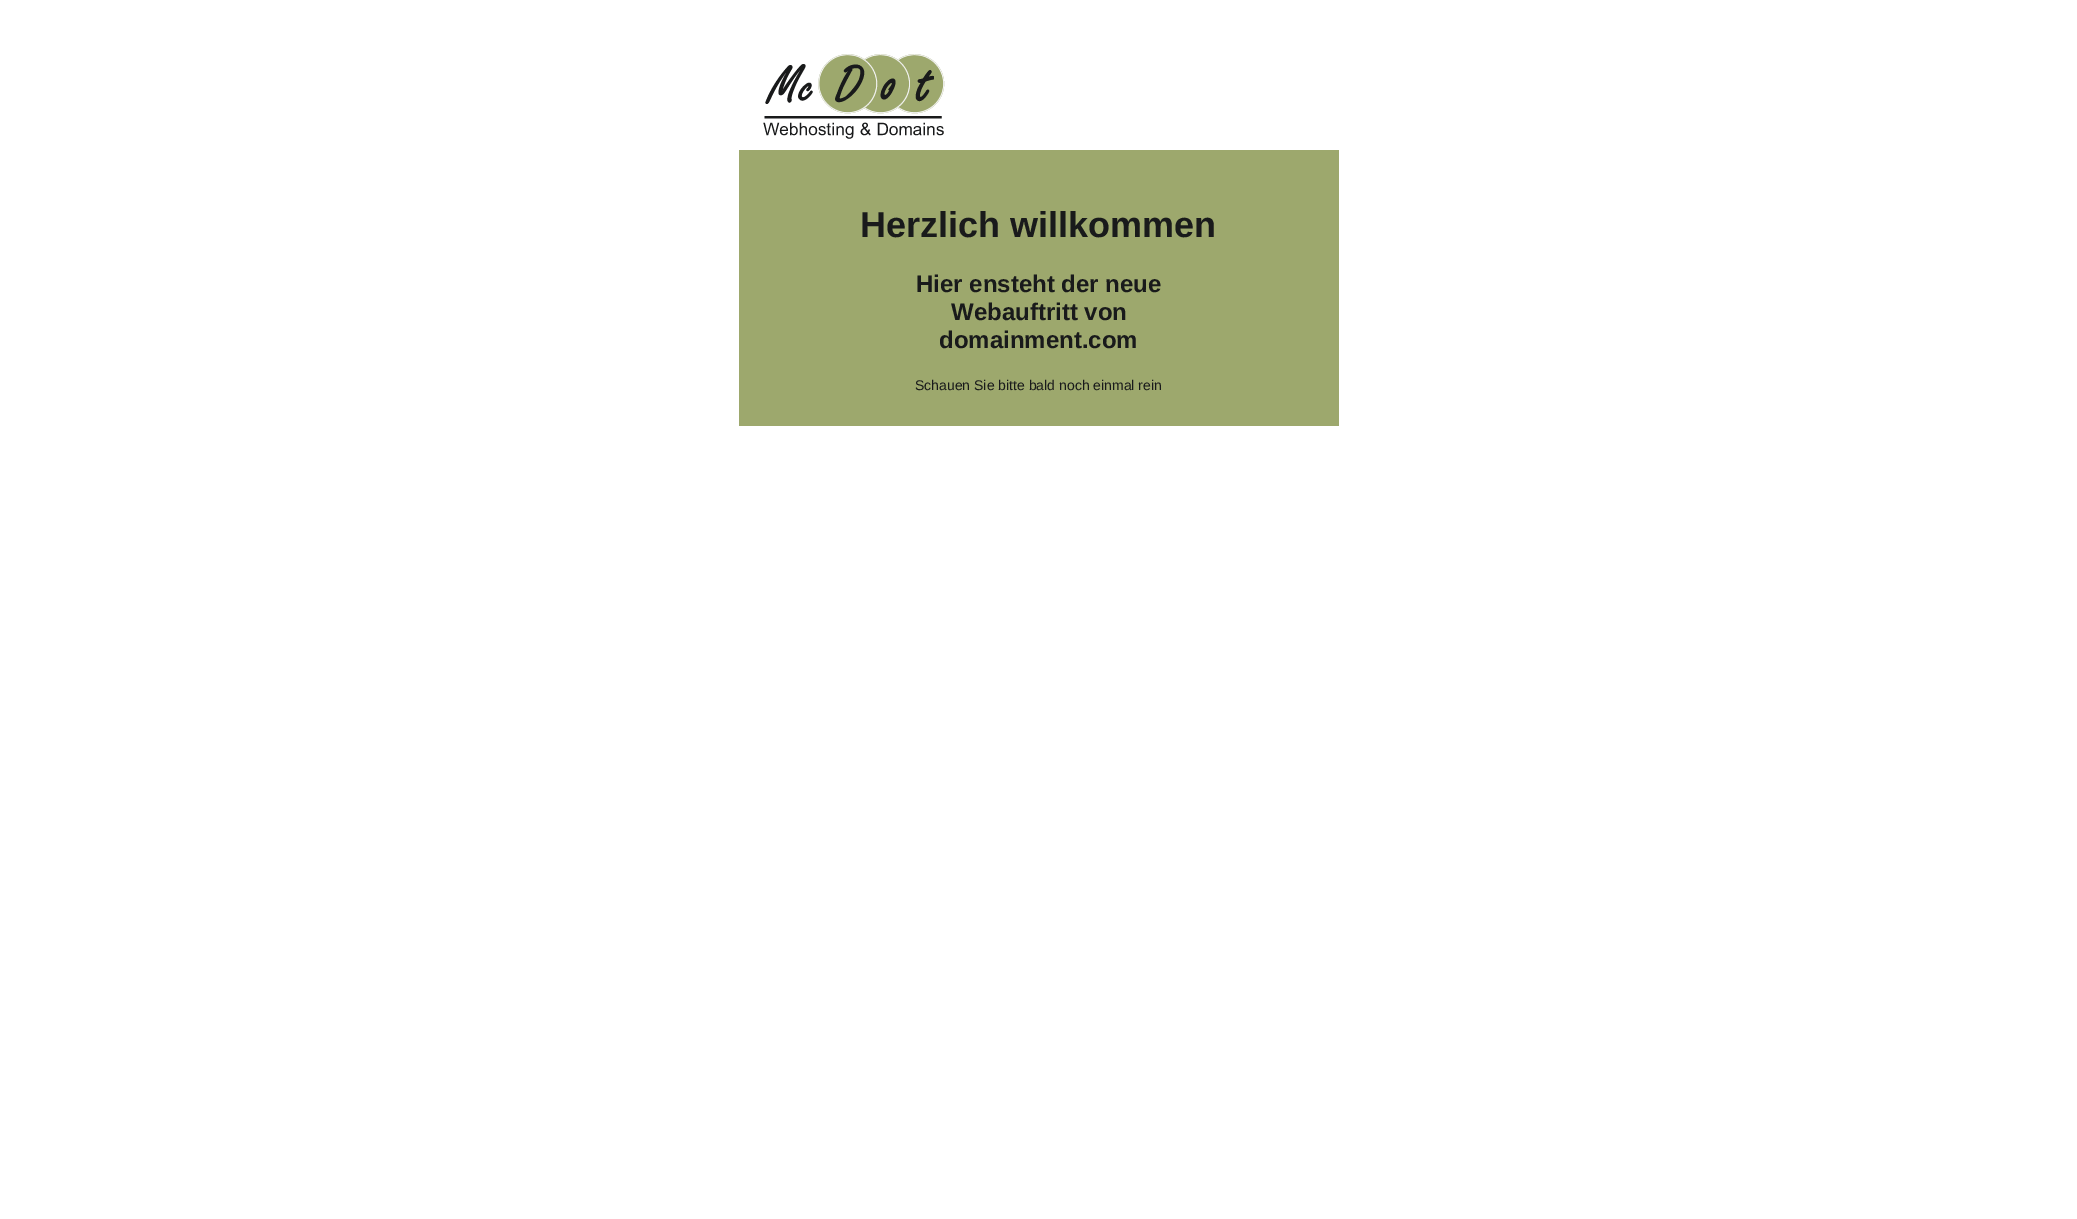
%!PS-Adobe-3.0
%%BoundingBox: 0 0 2077 1219
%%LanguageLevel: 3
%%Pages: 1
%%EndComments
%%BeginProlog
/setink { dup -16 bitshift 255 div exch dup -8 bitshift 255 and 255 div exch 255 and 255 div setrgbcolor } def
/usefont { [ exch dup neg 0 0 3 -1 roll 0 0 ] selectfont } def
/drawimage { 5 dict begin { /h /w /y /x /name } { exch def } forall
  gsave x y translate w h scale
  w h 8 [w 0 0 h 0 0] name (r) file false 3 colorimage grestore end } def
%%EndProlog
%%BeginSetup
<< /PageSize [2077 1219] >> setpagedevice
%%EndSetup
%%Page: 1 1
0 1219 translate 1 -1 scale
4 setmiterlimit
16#FFFFFF setink
0 0 2077 1219 rectfill
(img1.raw) 763 54 182 85 drawimage
16#9DA86D setink
739 150 600 276 rectfill
/LiberationSans-Bold 36 usefont
16#191A1B setink
860 237 moveto (Herzlich willkommen) show
/LiberationSans-Bold 24 usefont
[
    [(Hier ensteht der neue) 916 292]
    [(Webauftritt von) 951 320]
    [(domainment.com) 939 348]
] { aload pop moveto show } forall
/LiberationSans-Regular 14 usefont
915 390 moveto (Schauen Sie bitte bald noch einmal rein) show
showpage
%%EOF
